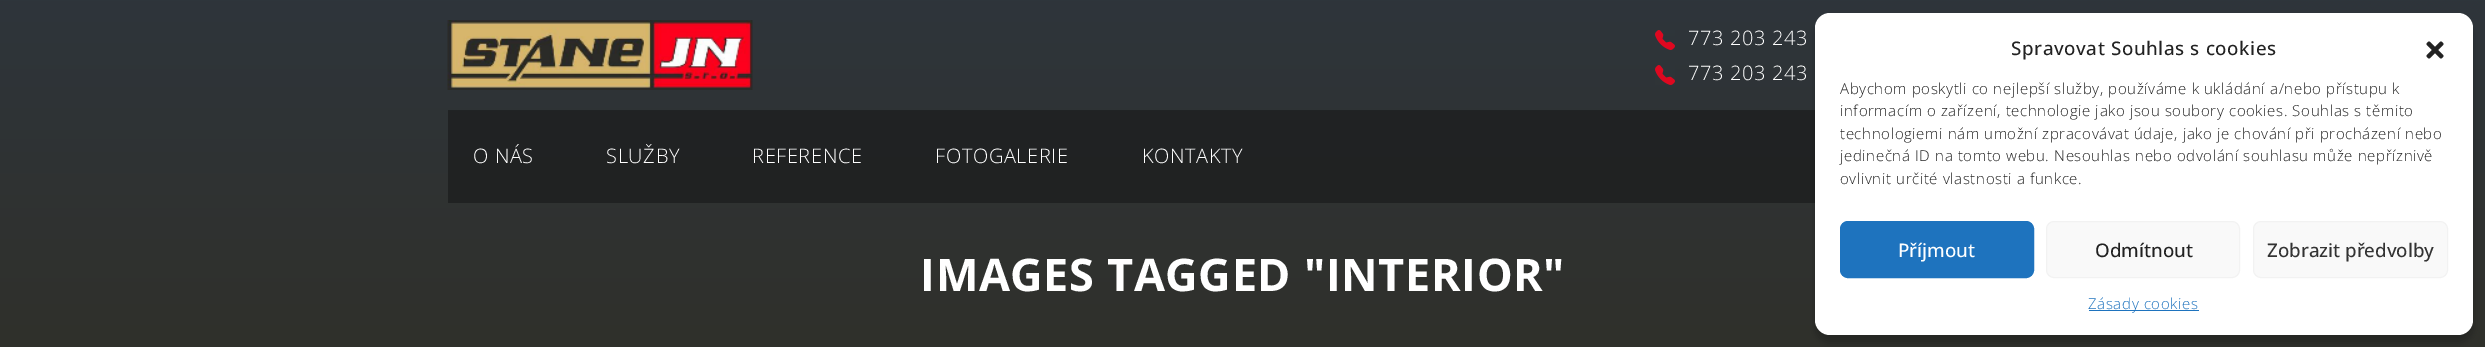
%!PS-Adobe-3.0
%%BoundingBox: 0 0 2485 347
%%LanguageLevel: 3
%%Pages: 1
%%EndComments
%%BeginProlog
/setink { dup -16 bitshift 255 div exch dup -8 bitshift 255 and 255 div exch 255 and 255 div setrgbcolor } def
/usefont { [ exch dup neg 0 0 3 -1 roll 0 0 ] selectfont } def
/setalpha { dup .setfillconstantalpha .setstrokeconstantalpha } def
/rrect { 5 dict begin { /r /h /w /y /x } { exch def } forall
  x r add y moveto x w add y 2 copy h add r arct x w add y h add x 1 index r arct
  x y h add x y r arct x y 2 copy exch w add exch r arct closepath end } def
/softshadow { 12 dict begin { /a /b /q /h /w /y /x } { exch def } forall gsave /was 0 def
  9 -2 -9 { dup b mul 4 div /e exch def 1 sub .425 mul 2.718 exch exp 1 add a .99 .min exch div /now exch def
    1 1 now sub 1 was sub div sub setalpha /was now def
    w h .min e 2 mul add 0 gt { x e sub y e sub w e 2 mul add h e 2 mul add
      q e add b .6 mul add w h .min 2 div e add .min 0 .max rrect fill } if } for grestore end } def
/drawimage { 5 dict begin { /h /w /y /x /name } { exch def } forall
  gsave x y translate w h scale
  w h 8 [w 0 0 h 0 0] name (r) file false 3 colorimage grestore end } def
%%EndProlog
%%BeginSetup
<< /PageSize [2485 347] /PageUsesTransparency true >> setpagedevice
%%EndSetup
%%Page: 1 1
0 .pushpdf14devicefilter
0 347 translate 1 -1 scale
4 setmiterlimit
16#FFFFFF setink
0 0 2485 347 rectfill
gsave 0 0 moveto 2485 0 lineto 2485 347 lineto 0 347 lineto closepath clip newpath
<< /ShadingType 2 /ColorSpace /DeviceRGB /Coords [1243 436 1243 0] /Extend [true true] /Function << /FunctionType 2 /Domain [0 1] /C0 [0.192 0.184 0.153] /C1 [0.18 0.208 0.231] /N 1 >> >> shfill grestore
gsave 448 110 moveto 1815 110 lineto 1815 203 lineto 448 203 lineto closepath clip newpath
<< /ShadingType 2 /ColorSpace /DeviceRGB /Coords [1243 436 1243 0] /Extend [true true] /Function << /FunctionType 2 /Domain [0 1] /C0 [0.129 0.122 0.102] /C1 [0.122 0.141 0.157] /N 1 >> >> shfill grestore
(img1.raw) 447 20 306 70 drawimage
(img2.raw) 1655 30 20 20 drawimage
/OpenSans-Light 20 usefont
1688 45 moveto 0.62 0 (773 203 243) ashow
(img3.raw) 1655 65 20 20 drawimage
1688 80 moveto 0.62 0 (773 203 243) ashow
473 163 moveto 0.62 0 (O NÁS) ashow
606 163 moveto 0.62 0 (SLUŽBY) ashow
752 163 moveto 0.62 0 (REFERENCE) ashow
935 163 moveto 0.62 0 (FOTOGALERIE) ashow
1142 163 moveto 0.62 0 (KONTAKTY) ashow
/OpenSans-Bold 45 usefont
920 291 moveto 0.62 0 (IMAGES TAGGED "INTERIOR") ashow
16#000000 setink
1815 20 658 323 15 4 0.23 softshadow
16#FFFFFF setink
1815 13 658 322 15 rrect fill
/OpenSans-Medium 18.75 usefont
16#222222 setink
2011 55 moveto 0.62 0 (Spravovat Souhlas s cookies) ashow
(img4.raw) 2426 41 18 18 drawimage
/OpenSans-Light 15 usefont
1840 94 moveto 0.62 0 (Abychom poskytli co nejlepší služby, používáme k ukládání a/nebo přístupu k) ashow
1840 116 moveto 0.62 0 (informacím o zařízení, technologie jako jsou soubory cookies. Souhlas s těmito) ashow
1840 139 moveto 0.62 0 (technologiemi nám umožní zpracovávat údaje, jako je chování při procházení nebo) ashow
1840 161 moveto 0.62 0 (jedinečná ID na tomto webu. Nesouhlas nebo odvolání souhlasu může nepříznivě) ashow
1840 184 moveto 0.62 0 (ovlivnit určité vlastnosti a funkce.) ashow
16#1E73BE setink
1840.5 221.5 193 56 7.5 rrect gsave fill grestore
stroke
/OpenSans-Medium 18.75 usefont
16#FFFFFF setink
1898 257 moveto (Příjmout) show
16#F9F9F9 setink
2046.5 221.5 193 56 7.5 rrect gsave fill grestore
16#F2F2F2 setink
stroke
16#222222 setink
2095 257 moveto (Odmítnout) show
16#F9F9F9 setink
2253.5 221.5 194 56 7.5 rrect gsave fill grestore
16#F2F2F2 setink
stroke
16#333333 setink
2267 257 moveto (Zobrazit předvolby) show
16#1E73BE setink
2089 310 110 1 rectfill
/OpenSans-Light 15 usefont
2088 309 moveto 0.62 0 (Zásady cookies) ashow
.poppdf14devicefilter showpage
%%EOF
